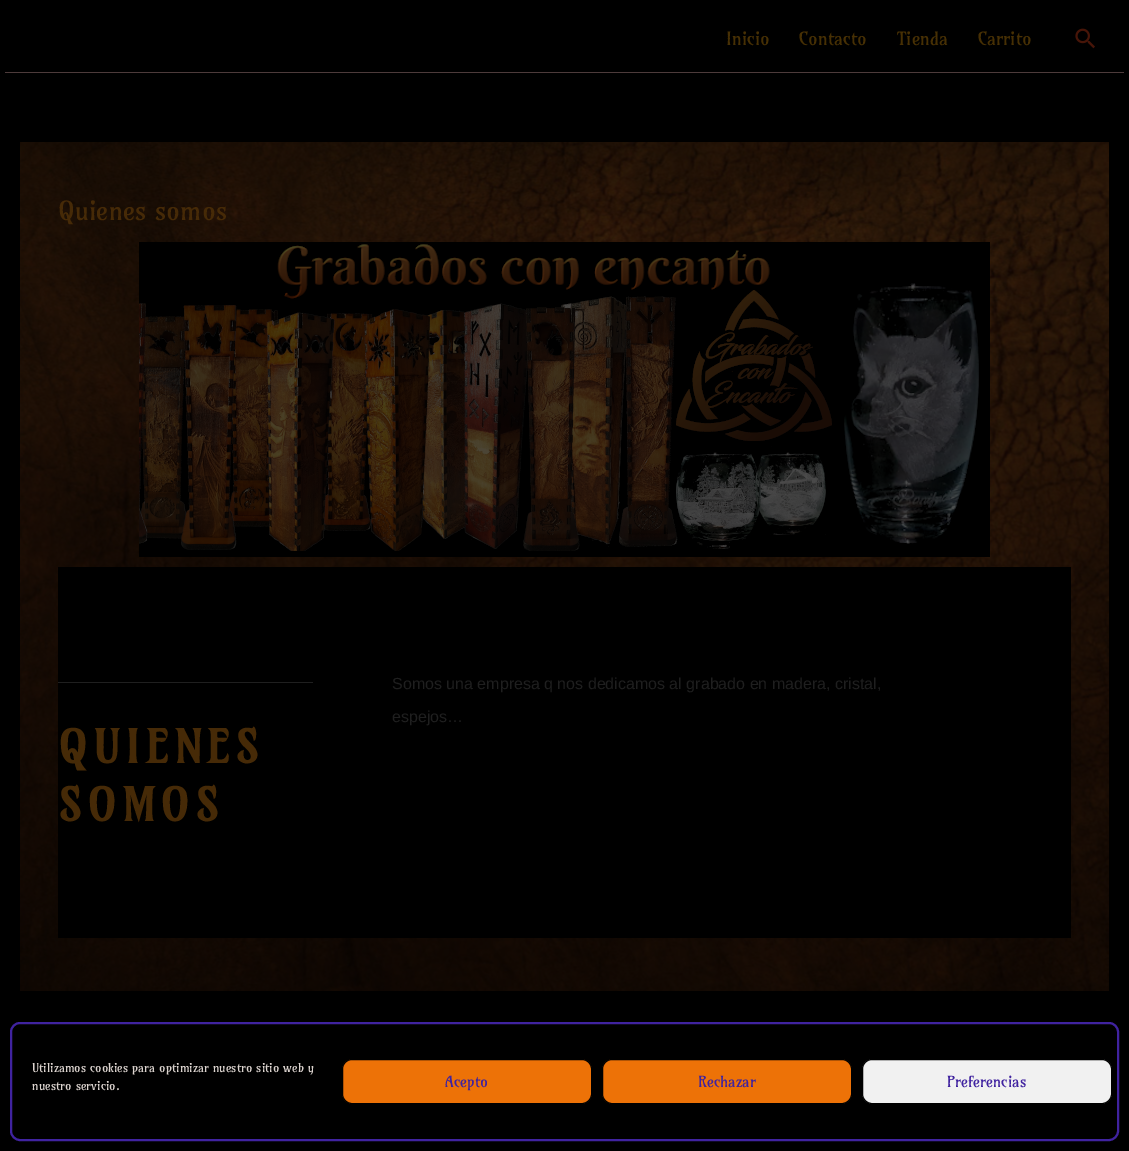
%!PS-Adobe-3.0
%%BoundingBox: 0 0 1129 1151
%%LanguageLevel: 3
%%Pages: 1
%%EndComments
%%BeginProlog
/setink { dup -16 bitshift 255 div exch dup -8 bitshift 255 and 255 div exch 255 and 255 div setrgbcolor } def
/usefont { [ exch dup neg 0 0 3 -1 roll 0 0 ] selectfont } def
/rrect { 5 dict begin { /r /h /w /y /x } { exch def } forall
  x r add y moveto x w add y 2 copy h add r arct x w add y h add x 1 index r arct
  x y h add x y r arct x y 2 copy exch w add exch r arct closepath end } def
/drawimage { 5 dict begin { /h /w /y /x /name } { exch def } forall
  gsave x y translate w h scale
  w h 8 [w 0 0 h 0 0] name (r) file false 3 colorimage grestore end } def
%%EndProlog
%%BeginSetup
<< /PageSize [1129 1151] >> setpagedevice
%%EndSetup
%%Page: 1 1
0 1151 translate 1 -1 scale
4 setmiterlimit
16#000000 setink
0 0 1129 1151 rectfill
16#4D3B3B setink
5 72 1119 1 rectfill
/Amarante-Regular 18 usefont
16#473004 setink
[
    [(Inicio) 726 45]
    [(Contacto) 799 45]
    [(Tienda) 897 45]
    [(Carrito) 978 45]
] { aload pop moveto show } forall
(img1.raw) 1075 28 20 21 drawimage
(img2.raw) 20 142 1089 849 drawimage
/Amarante-Regular 26 usefont
16#462A07 setink
58 220 moveto (Quienes somos) show
(img3.raw) 139 242 851 315 drawimage
16#000000 setink
58 567 1013 371 rectfill
/LiberationSans-Regular 16 usefont
16#1F1F1F setink
392 689 moveto (Somos una empresa q nos dedicamos al grabado en madera, cristal,) show
392 722 moveto (espejos…) show
58 682 255 1 rectfill
/Amarante-Bold 45 usefont
16#462A07 setink
58 763 moveto 6 0 (QUIENES) ashow
58 821 moveto 6 0 (SOMOS) ashow
16#4023A0 setink
2 setlinewidth
11 1023 1107 117 9 rrect stroke
/Amarante-Regular 12 usefont
16#DBD3CE setink
32 1072 moveto (Utilizamos cookies para optimizar nuestro sitio web y) show
32 1090 moveto (nuestro servicio.) show
16#ED7207 setink
342.5 1059.5 249 44 9.5 rrect gsave fill grestore
16#000000 setink
1 setlinewidth
stroke
/Amarante-Regular 15 usefont
16#4023A0 setink
445 1087 moveto (Acepto) show
16#ED7207 setink
602.5 1059.5 249 44 9.5 rrect gsave fill grestore
16#000000 setink
stroke
16#4023A0 setink
698 1087 moveto (Rechazar) show
16#F1F1F1 setink
862.5 1059.5 249 44 9.5 rrect gsave fill grestore
16#000000 setink
stroke
16#4023A0 setink
947 1087 moveto (Preferencias) show
showpage
%%EOF
